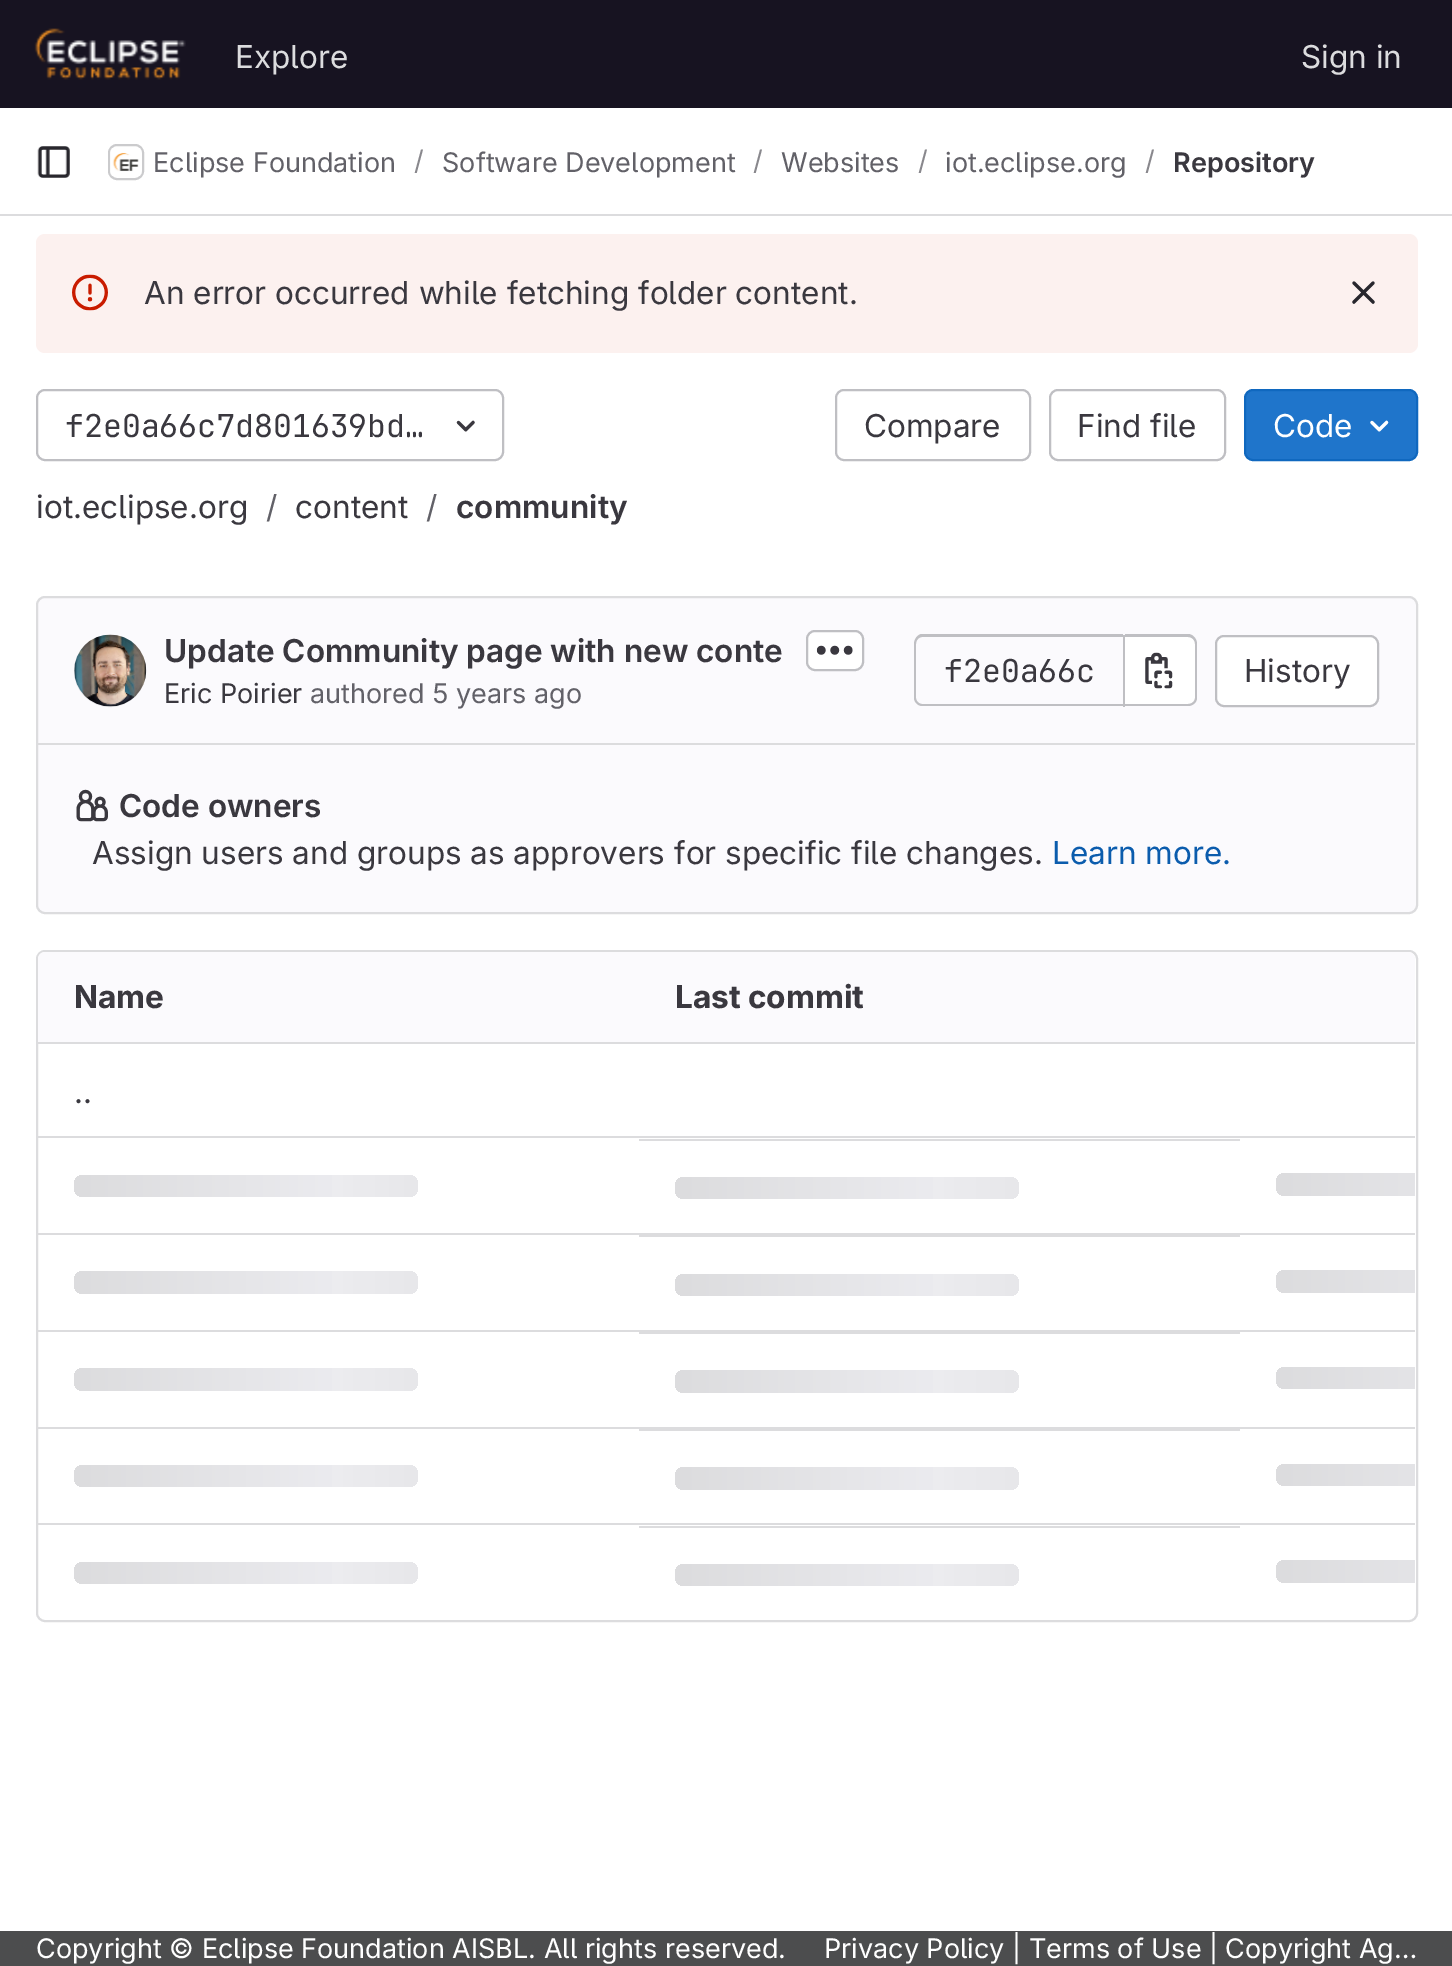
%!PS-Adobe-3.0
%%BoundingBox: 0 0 1452 1966
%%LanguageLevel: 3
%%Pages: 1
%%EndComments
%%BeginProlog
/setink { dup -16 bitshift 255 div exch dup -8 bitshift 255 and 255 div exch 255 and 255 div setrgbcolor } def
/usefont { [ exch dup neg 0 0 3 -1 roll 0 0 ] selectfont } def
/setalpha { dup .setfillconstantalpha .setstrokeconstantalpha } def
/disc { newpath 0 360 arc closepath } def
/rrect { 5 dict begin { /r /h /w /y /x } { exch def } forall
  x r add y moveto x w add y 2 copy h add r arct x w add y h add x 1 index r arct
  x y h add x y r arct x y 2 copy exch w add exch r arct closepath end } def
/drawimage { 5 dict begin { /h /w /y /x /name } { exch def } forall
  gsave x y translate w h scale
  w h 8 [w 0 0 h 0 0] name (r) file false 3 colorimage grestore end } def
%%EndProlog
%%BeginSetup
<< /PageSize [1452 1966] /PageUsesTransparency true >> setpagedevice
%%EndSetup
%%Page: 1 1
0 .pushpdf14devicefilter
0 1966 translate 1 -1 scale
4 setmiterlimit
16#FFFFFF setink
0 0 1452 1966 rectfill
16#171321 setink
0 0 1452 108 rectfill
(img1.raw) 34 28 152 52 drawimage
/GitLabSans-Regular 31.5 usefont
16#DCDCDE setink
235 68 moveto (Explore) show
1301 68 moveto (Sign in) show
0 214 1452 2 rectfill
(img2.raw) 37 146 33 32 drawimage
2 setlinewidth
109 145 34 34 8 rrect stroke
(img3.raw) 110 148 32 28 drawimage
0.08 setalpha
16#050506 setink
109 145 34 34 8 rrect stroke
/GitLabSans-Regular 27 usefont
1 setalpha
16#626168 setink
153 172 moveto (Eclipse Foundation) show
16#89888D setink
414 170 moveto (/) show
16#626168 setink
442 172 moveto (Software Development) show
16#89888D setink
753 170 moveto (/) show
16#626168 setink
781 172 moveto (Websites) show
16#89888D setink
918 170 moveto (/) show
16#626168 setink
945 172 moveto (iot.eclipse.org) show
16#89888D setink
1145 170 moveto (/) show
/GitLabSans-SemiBold 27 usefont
16#3A383F setink
1173 172 moveto (Repository) show
16#FCF1EF setink
36 234 1382 119 9 rrect fill
(img4.raw) 72 274 36 37 drawimage
/GitLabSans-Regular 31.5 usefont
16#3A383F setink
144 304 moveto (An error occurred while fetching folder content.) show
(img5.raw) 1352 281 23 23 drawimage
16#BFBFC3 setink
37 390 466 70 8 rrect stroke
/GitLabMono-Regular 31.5 usefont
16#3A383F setink
65 437 moveto (f2e0a66c7d801639bd…) show
(img6.raw) 456 420 19 12 drawimage
/GitLabSans-Regular 31.5 usefont
36 518 moveto (iot.eclipse.org) show
16#626168 setink
266 518 moveto (/) show
16#3A383F setink
295 518 moveto (content) show
16#626168 setink
426 518 moveto (/) show
/GitLabSans-SemiBold 31.5 usefont
16#3A383F setink
456 518 moveto (community) show
16#BFBFC3 setink
836 390 194 70 8 rrect stroke
/GitLabSans-Regular 31.5 usefont
16#3A383F setink
864 437 moveto (Compare) show
16#BFBFC3 setink
1050 390 175 70 8 rrect stroke
16#3A383F setink
1077 437 moveto (Find file) show
16#1F75CB setink
1245 390 172 70 8 rrect gsave fill grestore
16#1068BF setink
stroke
16#FFFFFF setink
1273 437 moveto (Code) show
(img7.raw) 1370 420 19 12 drawimage
16#FBFAFD setink
37 597 1380 316 8 rrect gsave fill grestore
16#DCDCDE setink
stroke
(img8.raw) 74 634 73 73 drawimage
0.08 setalpha
16#050506 setink
110 671 35 disc stroke
/GitLabSans-SemiBold 31.5 usefont
1 setalpha
16#3A383F setink
164 662 moveto (Update Community page with new conte) show
16#FFFFFF setink
807 631 56 39 8 rrect gsave fill grestore
16#BFBFC3 setink
stroke
(img9.raw) 816 645 37 10 drawimage
/GitLabSans-Regular 27 usefont
16#3A383F setink
164 703 moveto (Eric Poirier) show
16#626168 setink
310 703 moveto (authored 5 years ago) show
16#BFBFC3 setink
922 634 moveto 1123 634 lineto 1123 706 lineto 922 706 lineto 918 706 914 702 914 698 curveto 914 644 lineto 914 639 918 634 922 634 curveto closepath 922 637 moveto 1123 637 lineto 1123 704 lineto 922 704 lineto 919 704 916 701 916 698 curveto 916 644 lineto 916 640 919 637 922 637 curveto closepath eofill
/GitLabMono-Regular 31.5 usefont
16#3A383F setink
944 682 moveto (f2e0a66c) show
16#FFFFFF setink
1125 637 moveto 1188 637 lineto 1192 637 1195 640 1195 644 curveto 1195 697 lineto 1195 701 1192 704 1188 704 curveto 1125 704 lineto closepath fill
16#BFBFC3 setink
1125 634 moveto 1188 634 lineto 1193 634 1197 639 1197 644 curveto 1197 698 lineto 1197 702 1193 706 1188 706 curveto 1125 706 lineto closepath 1125 637 moveto 1188 637 lineto 1192 637 1195 640 1195 644 curveto 1195 698 lineto 1195 701 1192 704 1188 704 curveto 1125 704 lineto closepath eofill
1123 635 2 72 rectfill
(img10.raw) 1145 652 28 37 drawimage
16#FFFFFF setink
1216 636 162 70 8 rrect gsave fill grestore
16#BFBFC3 setink
stroke
/GitLabSans-Regular 31.5 usefont
16#3A383F setink
1244 682 moveto (History) show
16#DCDCDE setink
38 743 1377 2 rectfill
(img11.raw) 76 789 32 33 drawimage
/GitLabSans-SemiBold 31.5 usefont
16#3A383F setink
119 817 moveto (Code owners) show
/GitLabSans-Regular 31.5 usefont
92 864 moveto (Assign users and groups as approvers for specific file changes.) show
16#0B5CAD setink
1052 864 moveto (Learn more.) show
16#DCDCDE setink
37 951 1380 670 8 rrect stroke
16#FBFAFD setink
45 952 moveto 639 952 lineto 639 1044 lineto 38 1044 lineto 38 959 lineto 38 955 41 952 45 952 curveto closepath fill
/GitLabSans-Bold 31.5 usefont
16#3A383F setink
74 1008 moveto (Name) show
16#FBFAFD setink
639 952 601 90 rectfill
16#3A383F setink
675 1008 moveto (Last commit) show
16#FBFAFD setink
1240 952 moveto 1408 952 lineto 1412 952 1415 955 1415 959 curveto 1415 1044 lineto 1240 1044 lineto closepath fill
16#DCDCDE setink
38 1136 1377 2 rectfill
38 1042 1377 2 rectfill
/GitLabSans-Regular 31.5 usefont
16#3A383F setink
74 1103 moveto (..) show
16#DCDCDE setink
38 1233 1377 2 rectfill
gsave 74 1175 344 22 9 rrect clip newpath
<< /ShadingType 2 /ColorSpace /DeviceRGB /Coords [74 1175 603 1175] /Extend [true true] /Function << /FunctionType 3 /Domain [0 1] /Functions [<< /FunctionType 2 /Domain [0 1] /C0 [0.863 0.863 0.871] /C1 [0.925 0.925 0.937] /N 1 >> << /FunctionType 2 /Domain [0 1] /C0 [0.925 0.925 0.937] /C1 [0.863 0.863 0.871] /N 1 >>] /Bounds [0.5] /Encode [0 1 0 1] >> >> shfill grestore
639 1139 601 2 rectfill
gsave 675 1177 344 22 9 rrect clip newpath
<< /ShadingType 2 /ColorSpace /DeviceRGB /Coords [675 1177 1204 1177] /Extend [true true] /Function << /FunctionType 3 /Domain [0 1] /Functions [<< /FunctionType 2 /Domain [0 1] /C0 [0.863 0.863 0.871] /C1 [0.925 0.925 0.937] /N 1 >> << /FunctionType 2 /Domain [0 1] /C0 [0.925 0.925 0.937] /C1 [0.863 0.863 0.871] /N 1 >>] /Bounds [0.5] /Encode [0 1 0 1] >> >> shfill grestore
gsave 1285 1173 moveto 1415 1173 lineto 1415 1196 lineto 1285 1196 lineto 1280 1196 1276 1192 1276 1187 curveto 1276 1182 lineto 1276 1177 1280 1173 1285 1173 curveto closepath clip newpath
<< /ShadingType 2 /ColorSpace /DeviceRGB /Coords [1276 1173 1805 1173] /Extend [true true] /Function << /FunctionType 3 /Domain [0 1] /Functions [<< /FunctionType 2 /Domain [0 1] /C0 [0.863 0.863 0.871] /C1 [0.925 0.925 0.937] /N 1 >> << /FunctionType 2 /Domain [0 1] /C0 [0.925 0.925 0.937] /C1 [0.863 0.863 0.871] /N 1 >>] /Bounds [0.5] /Encode [0 1 0 1] >> >> shfill grestore
38 1330 1377 2 rectfill
gsave 74 1271 344 23 9 rrect clip newpath
<< /ShadingType 2 /ColorSpace /DeviceRGB /Coords [74 1271 603 1271] /Extend [true true] /Function << /FunctionType 3 /Domain [0 1] /Functions [<< /FunctionType 2 /Domain [0 1] /C0 [0.863 0.863 0.871] /C1 [0.925 0.925 0.937] /N 1 >> << /FunctionType 2 /Domain [0 1] /C0 [0.925 0.925 0.937] /C1 [0.863 0.863 0.871] /N 1 >>] /Bounds [0.5] /Encode [0 1 0 1] >> >> shfill grestore
639 1235 601 2 rectfill
gsave 675 1274 344 22 9 rrect clip newpath
<< /ShadingType 2 /ColorSpace /DeviceRGB /Coords [675 1274 1204 1274] /Extend [true true] /Function << /FunctionType 3 /Domain [0 1] /Functions [<< /FunctionType 2 /Domain [0 1] /C0 [0.863 0.863 0.871] /C1 [0.925 0.925 0.937] /N 1 >> << /FunctionType 2 /Domain [0 1] /C0 [0.925 0.925 0.937] /C1 [0.863 0.863 0.871] /N 1 >>] /Bounds [0.5] /Encode [0 1 0 1] >> >> shfill grestore
gsave 1285 1270 moveto 1415 1270 lineto 1415 1293 lineto 1285 1293 lineto 1280 1293 1276 1289 1276 1284 curveto 1276 1279 lineto 1276 1274 1280 1270 1285 1270 curveto closepath clip newpath
<< /ShadingType 2 /ColorSpace /DeviceRGB /Coords [1276 1270 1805 1270] /Extend [true true] /Function << /FunctionType 3 /Domain [0 1] /Functions [<< /FunctionType 2 /Domain [0 1] /C0 [0.863 0.863 0.871] /C1 [0.925 0.925 0.937] /N 1 >> << /FunctionType 2 /Domain [0 1] /C0 [0.925 0.925 0.937] /C1 [0.863 0.863 0.871] /N 1 >>] /Bounds [0.5] /Encode [0 1 0 1] >> >> shfill grestore
38 1427 1377 2 rectfill
gsave 74 1368 344 23 9 rrect clip newpath
<< /ShadingType 2 /ColorSpace /DeviceRGB /Coords [74 1368 603 1368] /Extend [true true] /Function << /FunctionType 3 /Domain [0 1] /Functions [<< /FunctionType 2 /Domain [0 1] /C0 [0.863 0.863 0.871] /C1 [0.925 0.925 0.937] /N 1 >> << /FunctionType 2 /Domain [0 1] /C0 [0.925 0.925 0.937] /C1 [0.863 0.863 0.871] /N 1 >>] /Bounds [0.5] /Encode [0 1 0 1] >> >> shfill grestore
639 1332 601 2 rectfill
gsave 675 1370 344 23 9 rrect clip newpath
<< /ShadingType 2 /ColorSpace /DeviceRGB /Coords [675 1370 1204 1370] /Extend [true true] /Function << /FunctionType 3 /Domain [0 1] /Functions [<< /FunctionType 2 /Domain [0 1] /C0 [0.863 0.863 0.871] /C1 [0.925 0.925 0.937] /N 1 >> << /FunctionType 2 /Domain [0 1] /C0 [0.925 0.925 0.937] /C1 [0.863 0.863 0.871] /N 1 >>] /Bounds [0.5] /Encode [0 1 0 1] >> >> shfill grestore
gsave 1285 1367 moveto 1415 1367 lineto 1415 1389 lineto 1285 1389 lineto 1280 1389 1276 1385 1276 1380 curveto 1276 1376 lineto 1276 1371 1280 1367 1285 1367 curveto closepath clip newpath
<< /ShadingType 2 /ColorSpace /DeviceRGB /Coords [1276 1367 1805 1367] /Extend [true true] /Function << /FunctionType 3 /Domain [0 1] /Functions [<< /FunctionType 2 /Domain [0 1] /C0 [0.863 0.863 0.871] /C1 [0.925 0.925 0.937] /N 1 >> << /FunctionType 2 /Domain [0 1] /C0 [0.925 0.925 0.937] /C1 [0.863 0.863 0.871] /N 1 >>] /Bounds [0.5] /Encode [0 1 0 1] >> >> shfill grestore
38 1523 1377 2 rectfill
gsave 74 1465 344 22 9 rrect clip newpath
<< /ShadingType 2 /ColorSpace /DeviceRGB /Coords [74 1465 603 1465] /Extend [true true] /Function << /FunctionType 3 /Domain [0 1] /Functions [<< /FunctionType 2 /Domain [0 1] /C0 [0.863 0.863 0.871] /C1 [0.925 0.925 0.937] /N 1 >> << /FunctionType 2 /Domain [0 1] /C0 [0.925 0.925 0.937] /C1 [0.863 0.863 0.871] /N 1 >>] /Bounds [0.5] /Encode [0 1 0 1] >> >> shfill grestore
639 1429 601 2 rectfill
gsave 675 1467 344 23 9 rrect clip newpath
<< /ShadingType 2 /ColorSpace /DeviceRGB /Coords [675 1467 1204 1467] /Extend [true true] /Function << /FunctionType 3 /Domain [0 1] /Functions [<< /FunctionType 2 /Domain [0 1] /C0 [0.863 0.863 0.871] /C1 [0.925 0.925 0.937] /N 1 >> << /FunctionType 2 /Domain [0 1] /C0 [0.925 0.925 0.937] /C1 [0.863 0.863 0.871] /N 1 >>] /Bounds [0.5] /Encode [0 1 0 1] >> >> shfill grestore
gsave 1285 1464 moveto 1415 1464 lineto 1415 1486 lineto 1285 1486 lineto 1280 1486 1276 1482 1276 1477 curveto 1276 1473 lineto 1276 1468 1280 1464 1285 1464 curveto closepath clip newpath
<< /ShadingType 2 /ColorSpace /DeviceRGB /Coords [1276 1464 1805 1464] /Extend [true true] /Function << /FunctionType 3 /Domain [0 1] /Functions [<< /FunctionType 2 /Domain [0 1] /C0 [0.863 0.863 0.871] /C1 [0.925 0.925 0.937] /N 1 >> << /FunctionType 2 /Domain [0 1] /C0 [0.925 0.925 0.937] /C1 [0.863 0.863 0.871] /N 1 >>] /Bounds [0.5] /Encode [0 1 0 1] >> >> shfill grestore
gsave 74 1562 344 22 9 rrect clip newpath
<< /ShadingType 2 /ColorSpace /DeviceRGB /Coords [74 1562 603 1562] /Extend [true true] /Function << /FunctionType 3 /Domain [0 1] /Functions [<< /FunctionType 2 /Domain [0 1] /C0 [0.863 0.863 0.871] /C1 [0.925 0.925 0.937] /N 1 >> << /FunctionType 2 /Domain [0 1] /C0 [0.925 0.925 0.937] /C1 [0.863 0.863 0.871] /N 1 >>] /Bounds [0.5] /Encode [0 1 0 1] >> >> shfill grestore
639 1526 601 2 rectfill
gsave 675 1564 344 22 9 rrect clip newpath
<< /ShadingType 2 /ColorSpace /DeviceRGB /Coords [675 1564 1204 1564] /Extend [true true] /Function << /FunctionType 3 /Domain [0 1] /Functions [<< /FunctionType 2 /Domain [0 1] /C0 [0.863 0.863 0.871] /C1 [0.925 0.925 0.937] /N 1 >> << /FunctionType 2 /Domain [0 1] /C0 [0.925 0.925 0.937] /C1 [0.863 0.863 0.871] /N 1 >>] /Bounds [0.5] /Encode [0 1 0 1] >> >> shfill grestore
gsave 1285 1560 moveto 1415 1560 lineto 1415 1583 lineto 1285 1583 lineto 1280 1583 1276 1579 1276 1574 curveto 1276 1569 lineto 1276 1564 1280 1560 1285 1560 curveto closepath clip newpath
<< /ShadingType 2 /ColorSpace /DeviceRGB /Coords [1276 1560 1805 1560] /Extend [true true] /Function << /FunctionType 3 /Domain [0 1] /Functions [<< /FunctionType 2 /Domain [0 1] /C0 [0.863 0.863 0.871] /C1 [0.925 0.925 0.937] /N 1 >> << /FunctionType 2 /Domain [0 1] /C0 [0.925 0.925 0.937] /C1 [0.863 0.863 0.871] /N 1 >>] /Bounds [0.5] /Encode [0 1 0 1] >> >> shfill grestore
16#4C4D4E setink
0 1931 1452 35 rectfill
/GitLabSans-Regular 27 usefont
16#FFFFFF setink
36 1958 moveto (Copyright © Eclipse Foundation AISBL. All rights reserved.) show
824 1958 moveto (Privacy Policy | Terms of Use | Copyright Ag…) show
.poppdf14devicefilter showpage
%%EOF
